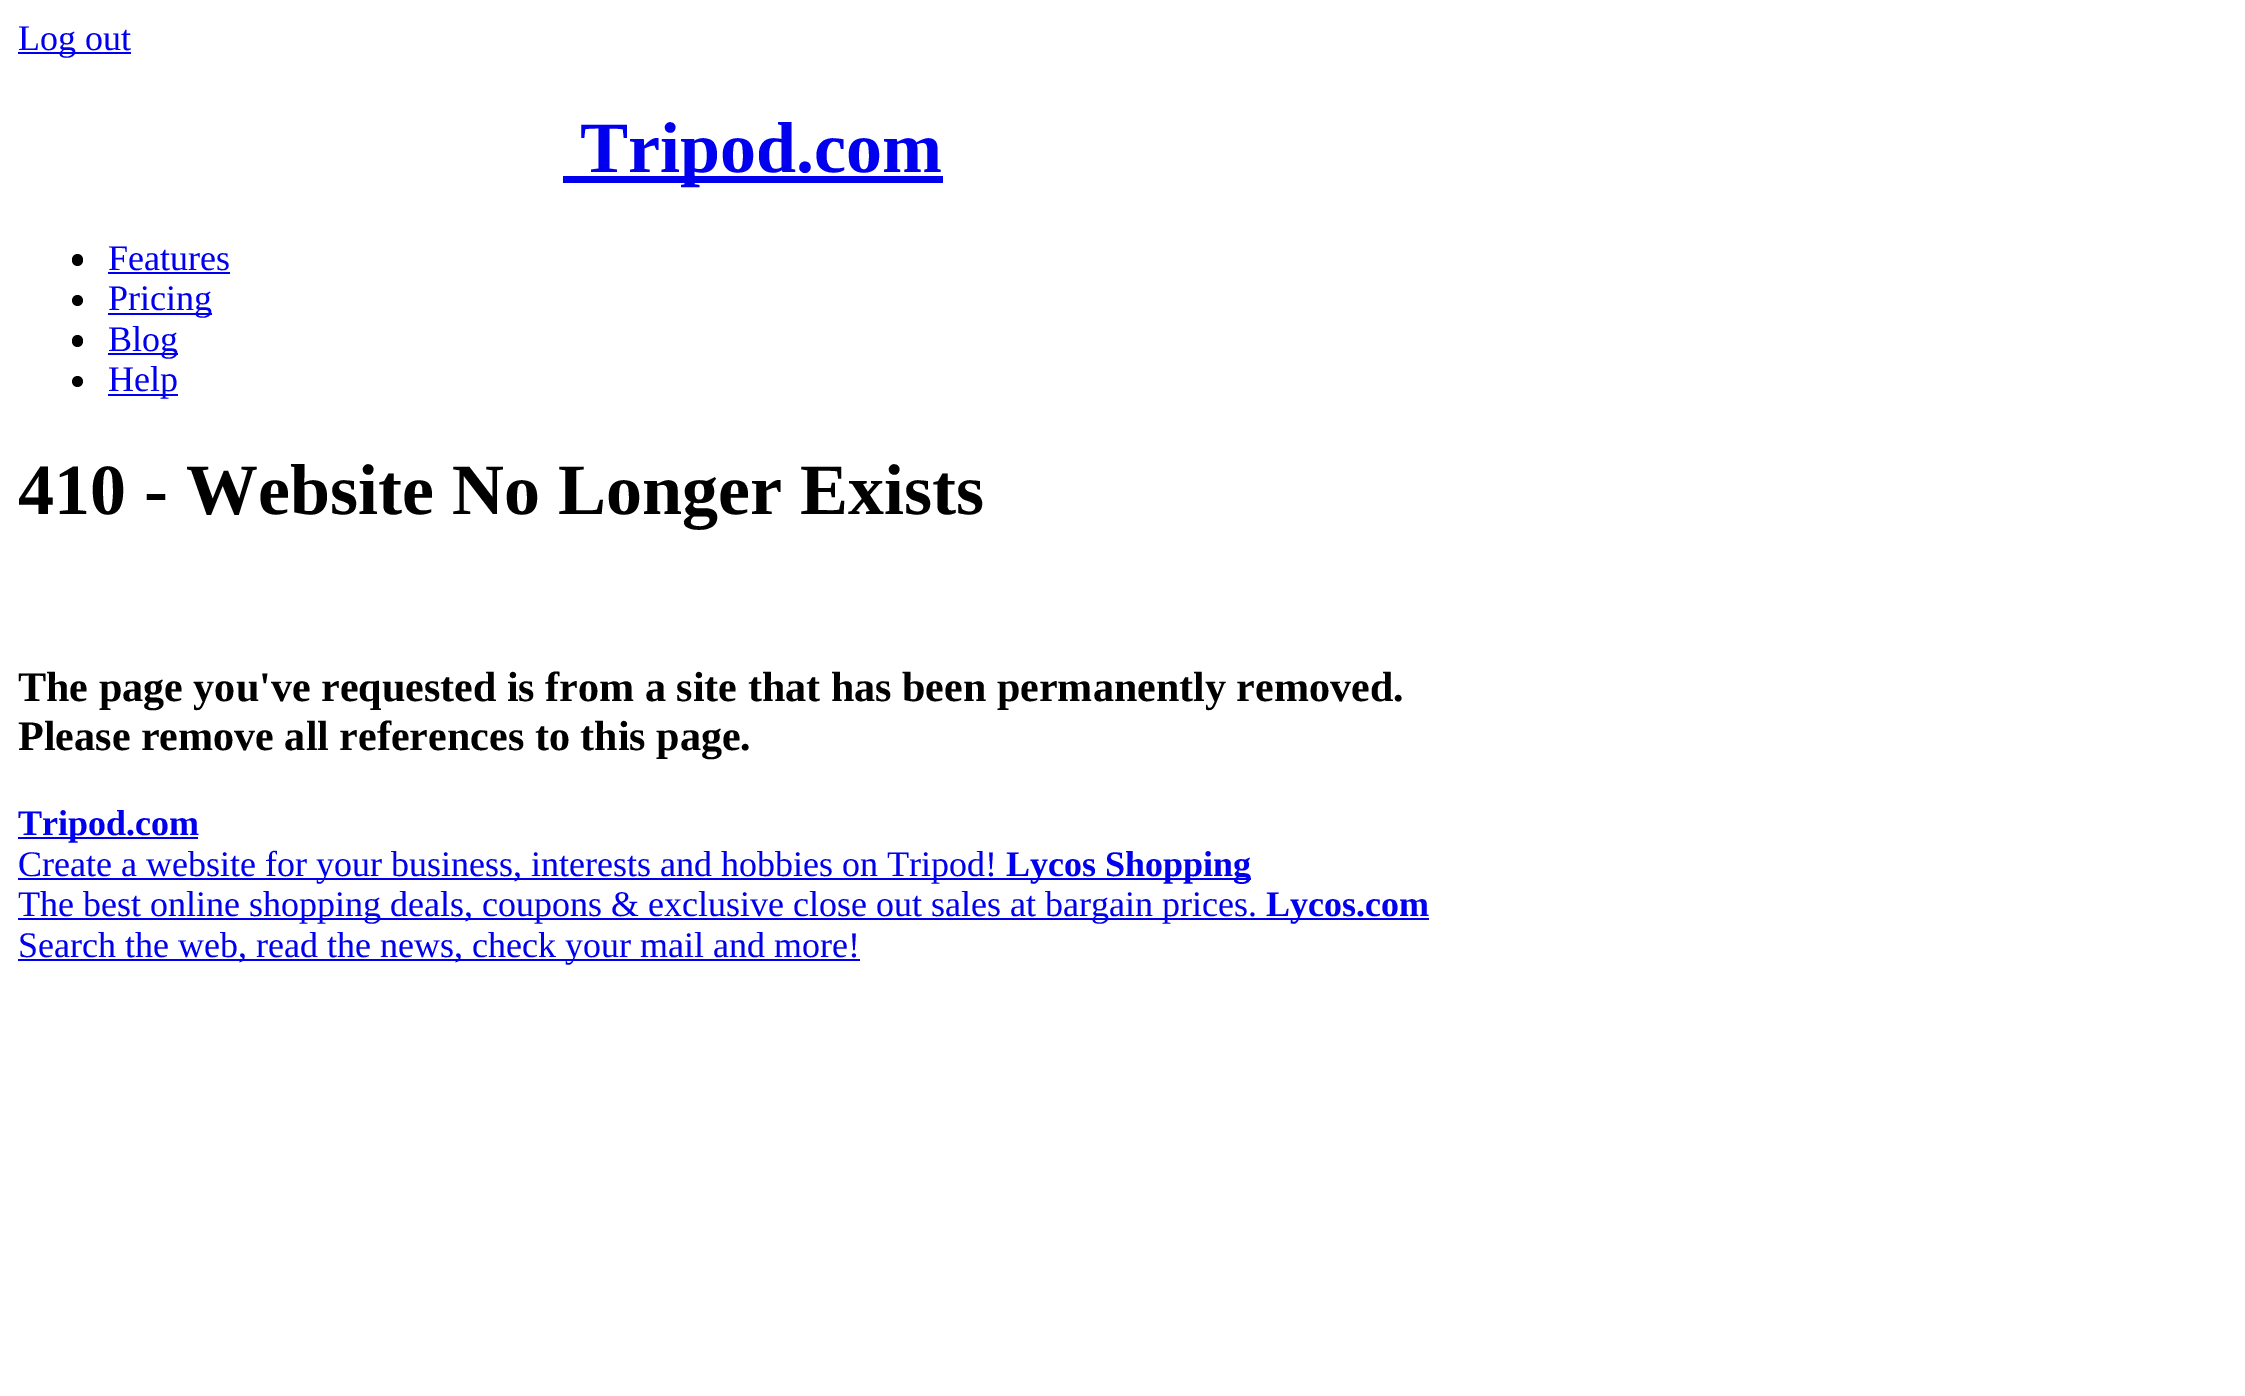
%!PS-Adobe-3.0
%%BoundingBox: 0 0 2245 1396
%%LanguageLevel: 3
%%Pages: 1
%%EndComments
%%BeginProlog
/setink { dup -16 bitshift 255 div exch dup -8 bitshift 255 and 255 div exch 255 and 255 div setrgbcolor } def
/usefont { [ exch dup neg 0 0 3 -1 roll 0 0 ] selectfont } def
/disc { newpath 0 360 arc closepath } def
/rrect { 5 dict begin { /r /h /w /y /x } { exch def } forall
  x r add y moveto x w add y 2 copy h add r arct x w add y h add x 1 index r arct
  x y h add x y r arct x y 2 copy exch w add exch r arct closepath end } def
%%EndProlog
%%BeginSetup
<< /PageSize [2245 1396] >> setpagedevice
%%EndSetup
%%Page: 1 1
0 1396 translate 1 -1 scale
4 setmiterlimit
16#FFFFFF setink
0 0 2245 1396 rectfill
16#0000EE setink
18 52 113 2 rectfill
/LiberationSerif-Regular 36 usefont
18 50 moveto (Log out) show
563 176 380 7 rectfill
/LiberationSerif-Bold 72 usefont
580 172 moveto (Tripod.com) show
16#000000 setink
72 254 11 12 5.5 rrect fill
/LiberationSerif-Regular 36 usefont
16#0000EE setink
108 270 moveto (Features) show
108 272 122 2 rectfill
16#000000 setink
77.5 300.5 5.5 disc fill
16#0000EE setink
108 313 104 2 rectfill
108 310 moveto (Pricing) show
16#000000 setink
72 335 11 12 5.5 rrect fill
16#0000EE setink
108 353 70 2 rectfill
108 351 moveto (Blog) show
16#000000 setink
77.5 381.5 5.5 disc fill
16#0000EE setink
108 394 70 2 rectfill
108 391 moveto (Help) show
/LiberationSerif-Bold 72 usefont
16#000000 setink
18 514 moveto (410 - Website No Longer Exists) show
/LiberationSerif-Bold 42.1 usefont
18 701 moveto (The page you've requested is from a site that has been permanently removed.) show
18 750 moveto (Please remove all references to this page.) show
16#0000EE setink
18 837 180 2 rectfill
/LiberationSerif-Bold 36 usefont
18 835 moveto (Tripod.com) show
18 878 1233 2 rectfill
/LiberationSerif-Regular 36 usefont
18 876 moveto (Create a website for your business, interests and hobbies on Tripod!) show
/LiberationSerif-Bold 36 usefont
1006 876 moveto (Lycos Shopping) show
18 918 1411 2 rectfill
/LiberationSerif-Regular 36 usefont
18 916 moveto (The best online shopping deals, coupons & exclusive close out sales at bargain prices.) show
/LiberationSerif-Bold 36 usefont
1266 916 moveto (Lycos.com) show
18 959 842 2 rectfill
/LiberationSerif-Regular 36 usefont
18 957 moveto (Search the web, read the news, check your mail and more!) show
showpage
%%EOF
